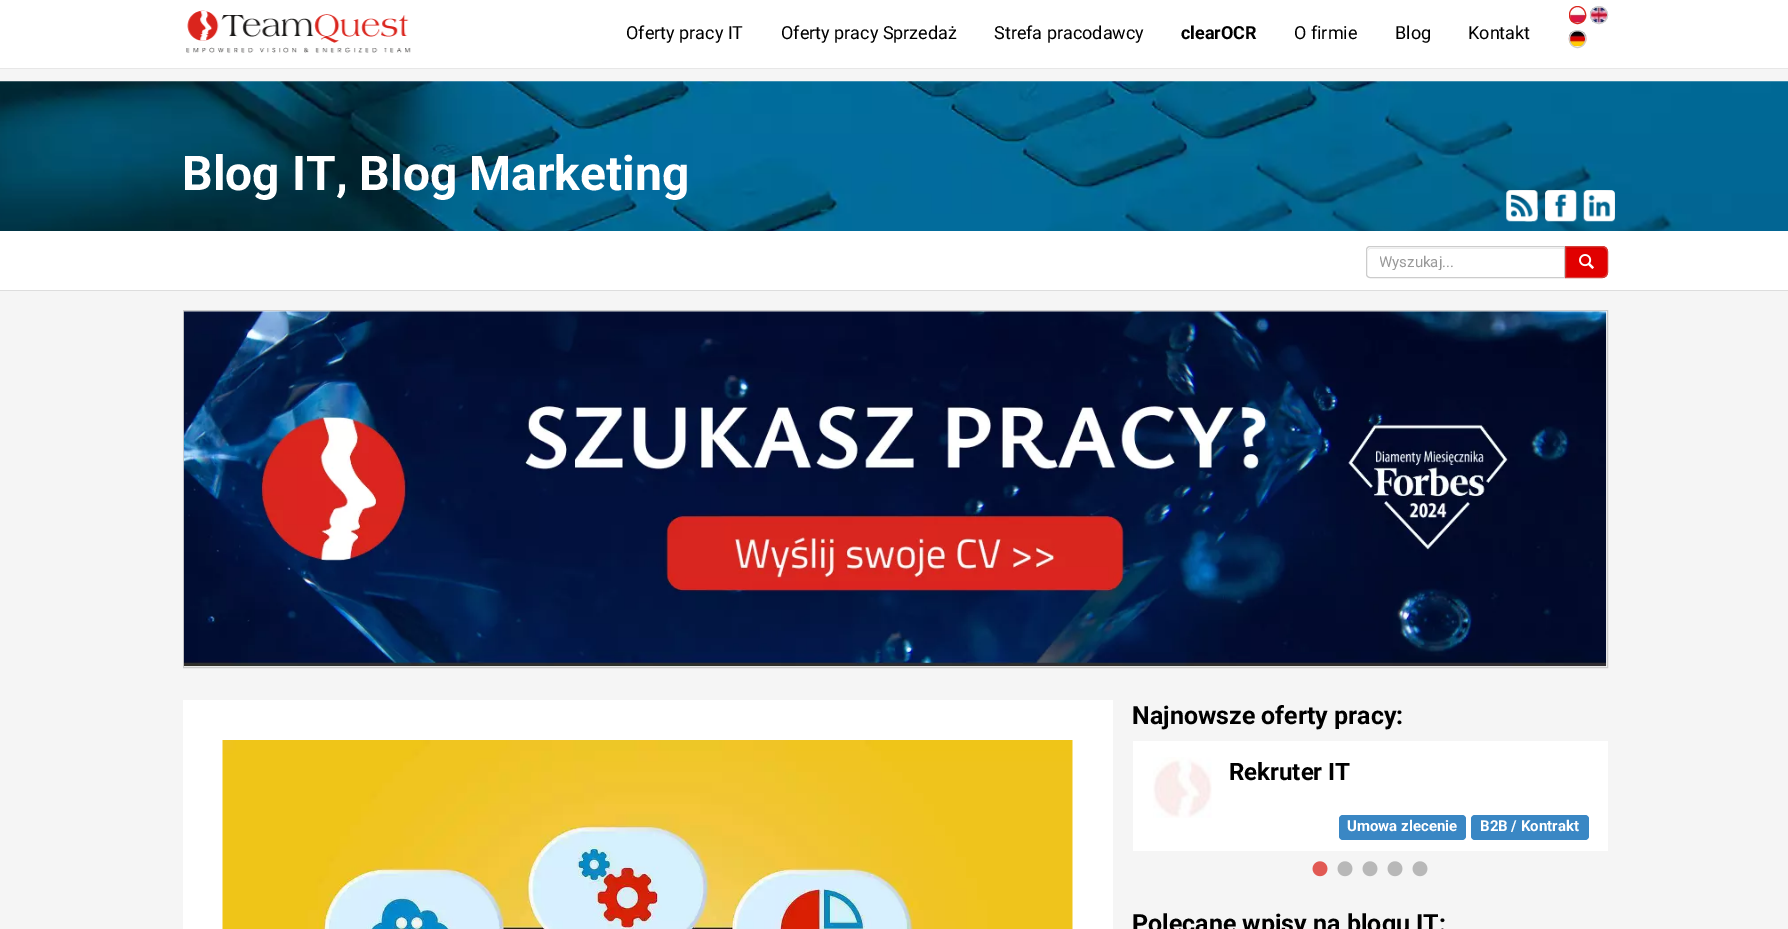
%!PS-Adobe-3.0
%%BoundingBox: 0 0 1788 929
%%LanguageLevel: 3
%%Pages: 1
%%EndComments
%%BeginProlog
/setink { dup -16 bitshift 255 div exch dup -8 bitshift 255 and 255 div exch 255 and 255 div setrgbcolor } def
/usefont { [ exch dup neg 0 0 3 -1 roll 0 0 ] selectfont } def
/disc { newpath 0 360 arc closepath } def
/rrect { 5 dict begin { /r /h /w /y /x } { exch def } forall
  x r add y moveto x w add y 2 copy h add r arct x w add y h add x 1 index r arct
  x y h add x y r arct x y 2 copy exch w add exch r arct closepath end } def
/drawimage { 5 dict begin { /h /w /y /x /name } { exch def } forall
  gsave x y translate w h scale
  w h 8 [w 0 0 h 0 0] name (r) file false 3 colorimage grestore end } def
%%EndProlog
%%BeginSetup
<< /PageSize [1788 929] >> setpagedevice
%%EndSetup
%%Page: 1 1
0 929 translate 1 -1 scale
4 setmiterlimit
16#F5F5F5 setink
0 0 1788 929 rectfill
16#FFFFFF setink
0 0 1788 68 rectfill
16#E7E7E7 setink
0 68 1788 1 rectfill
(img1.raw) 186 10 225 43 drawimage
/Roboto-Regular 18 usefont
16#000000 setink
[
    [(Oferty pracy IT) 626 39]
    [(Oferty pracy Sprzedaż) 781 39]
    [(Strefa pracodawcy) 994 39]
] { aload pop moveto show } forall
/Roboto-Bold 18 usefont
1181 39 moveto (clearOCR) show
/Roboto-Regular 18 usefont
[
    [(O firmie) 1294 39]
    [(Blog) 1395 39]
    [(Kontakt) 1468 39]
] { aload pop moveto show } forall
(img2.raw) 1569 8 18 15 drawimage
16#DA251D setink
1569.5 6.5 16 17 8 rrect stroke
(img3.raw) 1589 7 19 16 drawimage
16#CCCCCC setink
1599 15 8.5 disc stroke
(img4.raw) 1568 31 19 16 drawimage
1569.5 30.5 16 17 8 rrect stroke
(img5.raw) 0 81 1788 150 drawimage
/Roboto-Bold 48 usefont
16#FFFFFF setink
182 190 moveto (Blog IT, Blog Marketing) show
(img6.raw) 1524 208 14 14 drawimage
(img7.raw) 1506 190 32 32 drawimage
(img8.raw) 1545 190 32 32 drawimage
(img9.raw) 1583 190 32 32 drawimage
0 231 1788 59 rectfill
16#DDDDDD setink
0 290 1788 1 rectfill
16#ECECEC setink
1370 249 moveto 1564 249 lineto 1564 248 lineto 1370 248 lineto 1369 248 1368 249 1368 251 curveto 1368 250 1369 249 1370 249 curveto closepath fill
16#CCCCCC setink
1370 246.5 moveto 1564.5 246.5 lineto 1564.5 277.5 lineto 1370 277.5 lineto 1368 277.5 1366.5 276 1366.5 274 curveto 1366.5 250 lineto 1366.5 248 1368 246.5 1370 246.5 curveto closepath stroke
gsave
1380 253 171 17 rectclip
/Roboto-Regular 15 usefont
16#999999 setink
1379 267 moveto (Wyszukaj...) show
grestore
16#E10000 setink
1565 246 moveto 1602 246 lineto 1605.5 246 1608 248.5 1608 252 curveto 1608 272 lineto 1608 275.5 1605.5 278 1602 278 curveto 1565 278 lineto closepath fill
16#D00000 setink
1566 249 moveto 1595 249 lineto 1603 249 1606 250 1606 254 curveto 1606 253 lineto 1606 250 1604 248 1601 248 curveto 1566 248 lineto closepath fill
16#D43F3A setink
1565.5 246.5 moveto 1602 246.5 lineto 1605 246.5 1607.5 249 1607.5 252 curveto 1607.5 272 lineto 1607.5 275 1605 277.5 1602 277.5 curveto 1565.5 277.5 lineto closepath stroke
(img10.raw) 1579 254 15 15 drawimage
16#CCCCCC setink
183.5 310.5 1424 357 rectstroke
(img11.raw) 183 311 1424 356 drawimage
16#FFFFFF setink
183 700 930 229 rectfill
(img12.raw) 222 740 851 189 drawimage
/Roboto-Bold 25 usefont
16#000000 setink
1132 724 moveto (Najnowsze oferty pracy:) show
16#FFFFFF setink
1133 741 475 110 rectfill
(img13.raw) 1153 757 59 61 drawimage
/Roboto-Bold 24 usefont
16#000000 setink
1229 780 moveto (Rekruter IT) show
16#3A87C4 setink
1339 815 127 25 4 rrect fill
/Roboto-Bold 15 usefont
16#FFFFFF setink
1347 831 moveto (Umowa zlecenie) show
16#3A87C4 setink
1471 815 118 25 4 rrect fill
16#FFFFFF setink
1480 831 moveto (B2B / Kontrakt) show
(img14.raw) 1312 861 16 16 drawimage
(img15.raw) 1337 861 16 16 drawimage
(img15.raw) 1362 861 16 16 drawimage
(img15.raw) 1387 861 16 16 drawimage
(img15.raw) 1412 861 16 16 drawimage
/Roboto-Bold 25 usefont
16#000000 setink
1132 932 moveto (Polecane wpisy na blogu IT:) show
showpage
%%EOF
